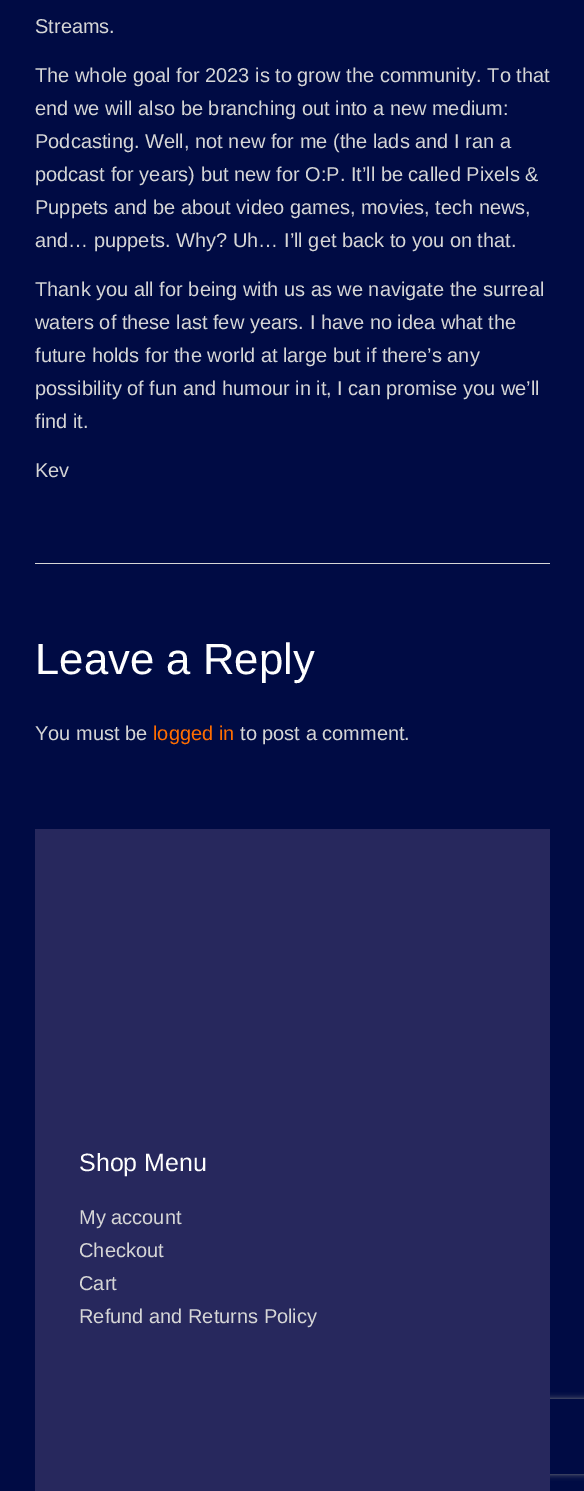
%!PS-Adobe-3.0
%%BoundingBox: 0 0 584 1491
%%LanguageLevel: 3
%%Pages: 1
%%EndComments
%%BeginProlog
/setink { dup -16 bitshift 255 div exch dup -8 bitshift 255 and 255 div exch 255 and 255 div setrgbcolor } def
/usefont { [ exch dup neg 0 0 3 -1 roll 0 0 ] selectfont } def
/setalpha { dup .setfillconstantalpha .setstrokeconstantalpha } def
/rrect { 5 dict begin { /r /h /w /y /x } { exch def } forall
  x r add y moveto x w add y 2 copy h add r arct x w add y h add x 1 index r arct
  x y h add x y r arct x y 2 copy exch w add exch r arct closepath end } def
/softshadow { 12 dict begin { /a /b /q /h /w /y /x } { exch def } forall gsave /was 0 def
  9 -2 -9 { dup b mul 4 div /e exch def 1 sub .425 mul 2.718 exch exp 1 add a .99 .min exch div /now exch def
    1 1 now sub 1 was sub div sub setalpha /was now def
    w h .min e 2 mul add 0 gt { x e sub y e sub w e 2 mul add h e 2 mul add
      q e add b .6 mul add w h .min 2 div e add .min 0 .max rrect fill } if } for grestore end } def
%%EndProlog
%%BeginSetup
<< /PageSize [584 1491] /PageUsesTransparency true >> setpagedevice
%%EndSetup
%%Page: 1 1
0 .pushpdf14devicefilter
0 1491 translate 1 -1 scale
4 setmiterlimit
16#000B44 setink
0 0 584 1491 rectfill
/LiberationSans-Regular 20 usefont
16#D6D6D6 setink
[
    [(Streams.) 35 33]
    [(The whole goal for 2023 is to grow the community. To that) 35 82]
    [(end we will also be branching out into a new medium:) 35 115]
    [(Podcasting. Well, not new for me \(the lads and I ran a) 35 148]
    [(podcast for years\) but new for O:P. It’ll be called Pixels &) 35 181]
    [(Puppets and be about video games, movies, tech news,) 35 214]
    [(and… puppets. Why? Uh… I’ll get back to you on that.) 35 247]
    [(Thank you all for being with us as we navigate the surreal) 35 296]
    [(waters of these last few years. I have no idea what the) 35 329]
    [(future holds for the world at large but if there’s any) 35 362]
    [(possibility of fun and humour in it, I can promise you we’ll) 35 395]
    [(find it.) 35 428]
    [(Kev) 35 477]
] { aload pop moveto show } forall
35 563 515 1 rectfill
/LiberationSans-Regular 43.75 usefont
16#FEFEFE setink
35 674 moveto (Leave a Reply) show
/LiberationSans-Regular 20 usefont
16#D6D6D6 setink
35 740 moveto (You must be) show
16#FF6D00 setink
153 740 moveto (logged in) show
16#D6D6D6 setink
240 740 moveto (to post a comment.) show
gsave
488 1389 moveto 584 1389 lineto 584 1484 lineto 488 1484 lineto closepath 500.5 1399 moveto 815.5 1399 lineto 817 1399 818 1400 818 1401.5 curveto 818 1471.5 lineto 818 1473 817 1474 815.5 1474 curveto 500.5 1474 lineto 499 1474 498 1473 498 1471.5 curveto 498 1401.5 lineto 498 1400 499 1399 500.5 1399 curveto closepath eoclip newpath
16#808080 setink
498 1399 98 75 2.5 3 1 softshadow
grestore
16#27285D setink
35 829 515 662 rectfill
/LiberationSans-Regular 25 usefont
16#FEFEFE setink
79 1171 moveto (Shop Menu) show
/LiberationSans-Regular 20 usefont
16#D6D6D6 setink
[
    [(My account) 79 1224]
    [(Checkout) 79 1257]
    [(Cart) 79 1290]
    [(Refund and Returns Policy) 79 1323]
] { aload pop moveto show } forall
.poppdf14devicefilter showpage
%%EOF
